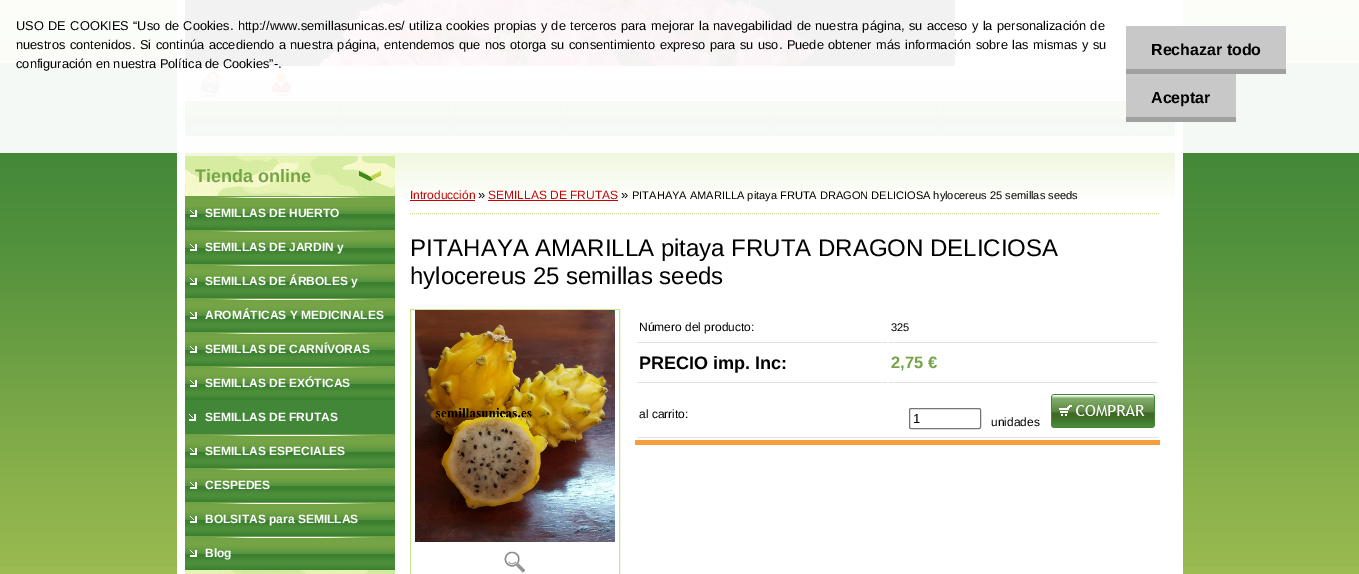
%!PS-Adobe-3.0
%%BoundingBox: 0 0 1359 574
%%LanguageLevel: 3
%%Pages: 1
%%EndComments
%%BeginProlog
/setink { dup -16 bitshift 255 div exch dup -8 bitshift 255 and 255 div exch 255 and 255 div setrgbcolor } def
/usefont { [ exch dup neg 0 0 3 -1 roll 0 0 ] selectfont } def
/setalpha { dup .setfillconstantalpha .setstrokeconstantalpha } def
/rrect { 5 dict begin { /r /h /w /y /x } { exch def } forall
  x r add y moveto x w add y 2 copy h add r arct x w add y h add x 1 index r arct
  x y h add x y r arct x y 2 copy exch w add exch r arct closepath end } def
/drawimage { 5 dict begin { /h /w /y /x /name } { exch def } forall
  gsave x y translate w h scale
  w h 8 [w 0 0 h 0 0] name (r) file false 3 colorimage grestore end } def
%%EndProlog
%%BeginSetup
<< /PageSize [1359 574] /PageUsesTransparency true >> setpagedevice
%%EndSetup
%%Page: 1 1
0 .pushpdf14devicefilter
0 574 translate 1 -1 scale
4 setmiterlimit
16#9CBB50 setink
0 0 1359 574 rectfill
(img1.raw) 0 0 1359 567 drawimage
16#FFFFFF setink
177 0 1006 574 rectfill
(img2.raw) 185 0 770 66 drawimage
(img3.raw) 185 66 941 35 drawimage
(img4.raw) 197 71 24 26 drawimage
(img5.raw) 270 73 22 23 drawimage
(img6.raw) 185 101 990 35 drawimage
[
    [339 101 1 30 16#418737]
    [448 101 1 30 16#418737]
    [567 101 1 30 16#418737]
    [769 101 1 30 16#418737]
    [943 101 1 30 16#418737]
    [1135 122 1 9 16#418737]
] { aload pop setink rectfill } forall
(img7.raw) 185 136 990 63 drawimage
0.95 setalpha
16#FFFFFF setink
0 0 1359 153 rectfill
/LiberationSans-Regular 12.8 usefont
1 setalpha
16#000000 setink
16 30 moveto 0.9 0 32 (USO DE COOKIES “Uso de Cookies. http://www.semillasunicas.es/ utiliza cookies propias y de terceros para mejorar la navegabilidad de nuestra página, su acceso y la personalización de) widthshow
16 49 moveto 1 0 32 (nuestros contenidos. Si continúa accediendo a nuestra página, entendemos que nos otorga su consentimiento expreso para su uso. Puede obtener más información sobre las mismas y su) widthshow
16 68 moveto (configuración en nuestra Política de Cookies”-.) show
16#C8C8C8 setink
1126 26 160 43 rectfill
16#A0A0A0 setink
1126 69 160 5 rectfill
/LiberationSans-Bold 16 usefont
16#000000 setink
1151 55 moveto (Rechazar todo) show
16#C8C8C8 setink
1126 74 110 43 rectfill
16#A0A0A0 setink
1126 117 110 5 rectfill
16#000000 setink
1151 103 moveto (Aceptar) show
(img8.raw) 185 156 210 40 drawimage
/LiberationSans-Bold 18 usefont
16#74A445 setink
195 182 moveto (Tienda online) show
(img9.raw) 185 196 210 34 drawimage
/LiberationSans-Bold 12 usefont
16#FFFFFF setink
205 217 moveto (SEMILLAS DE HUERTO) show
(img9.raw) 185 230 210 34 drawimage
205 251 moveto (SEMILLAS DE JARDIN y) show
(img9.raw) 185 264 210 34 drawimage
205 285 moveto (SEMILLAS DE ÁRBOLES y) show
(img9.raw) 185 298 210 34 drawimage
205 319 moveto (AROMÁTICAS Y MEDICINALES) show
(img9.raw) 185 332 210 34 drawimage
205 353 moveto (SEMILLAS DE CARNÍVORAS) show
(img9.raw) 185 366 210 34 drawimage
205 387 moveto (SEMILLAS DE EXÓTICAS) show
(img10.raw) 185 400 210 34 drawimage
205 421 moveto (SEMILLAS DE FRUTAS) show
(img9.raw) 185 434 210 34 drawimage
205 455 moveto (SEMILLAS ESPECIALES) show
(img9.raw) 185 468 210 34 drawimage
205 489 moveto (CESPEDES) show
(img9.raw) 185 502 210 34 drawimage
205 523 moveto (BOLSITAS para SEMILLAS) show
(img9.raw) 185 536 210 34 drawimage
205 557 moveto (Blog) show
(img11.raw) 185 570 210 4 drawimage
16#CCE592 setink
[1 1] 0 setdash
410 213.5 moveto 1160 213.5 lineto stroke
/LiberationSans-Regular 12 usefont
16#C30405 setink
410 199 moveto (Introducción) show
410 200 65 1 rectfill
/LiberationSans-Regular 13 usefont
16#000000 setink
478 199 moveto (») show
/LiberationSans-Regular 12 usefont
16#C30405 setink
488 199 moveto (SEMILLAS DE FRUTAS) show
488 200 130 1 rectfill
/LiberationSans-Regular 13 usefont
16#000000 setink
621 199 moveto (») show
/LiberationSans-Regular 11.05 usefont
632 199 moveto (PITAHAYA AMARILLA pitaya FRUTA DRAGON DELICIOSA hylocereus 25 semillas seeds) show
/LiberationSans-Regular 24 usefont
410 256 moveto (PITAHAYA AMARILLA pitaya FRUTA DRAGON DELICIOSA) show
410 284 moveto (hylocereus 25 semillas seeds) show
16#CCE592 setink
[] 0 setdash
410.5 309.5 209 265 rectstroke
(img12.raw) 415 310 200 232 drawimage
(img13.raw) 504 551 21 22 drawimage
16#F89D3C setink
635 440 525 5 rectfill
16#E2E2E2 setink
637 342 250 1 rectfill
/LiberationSans-Regular 12 usefont
16#000000 setink
639 331 moveto (Número del producto:) show
16#E2E2E2 setink
889 342 269 1 rectfill
/LiberationSans-Regular 11.05 usefont
16#000000 setink
891 331 moveto (325) show
16#E2E2E2 setink
637 382 250 1 rectfill
/LiberationSans-Bold 18 usefont
16#000000 setink
639 369 moveto (PRECIO imp. Inc:) show
16#E2E2E2 setink
889 382 269 1 rectfill
/LiberationSans-Bold 16.5 usefont
16#74A445 setink
891 368 moveto (2,75 €) show
16#E2E2E2 setink
637 437 521 1 rectfill
/LiberationSans-Regular 12 usefont
16#000000 setink
639 418 moveto (al carrito:) show
16#767676 setink
909.5 408.5 71 20 1.5 rrect stroke
/LiberationSans-Regular 13 usefont
16#000000 setink
913 423 moveto (1) show
/LiberationSans-Regular 12 usefont
991 426 moveto (unidades) show
(img14.raw) 1051 394 104 34 drawimage
.poppdf14devicefilter showpage
%%EOF
